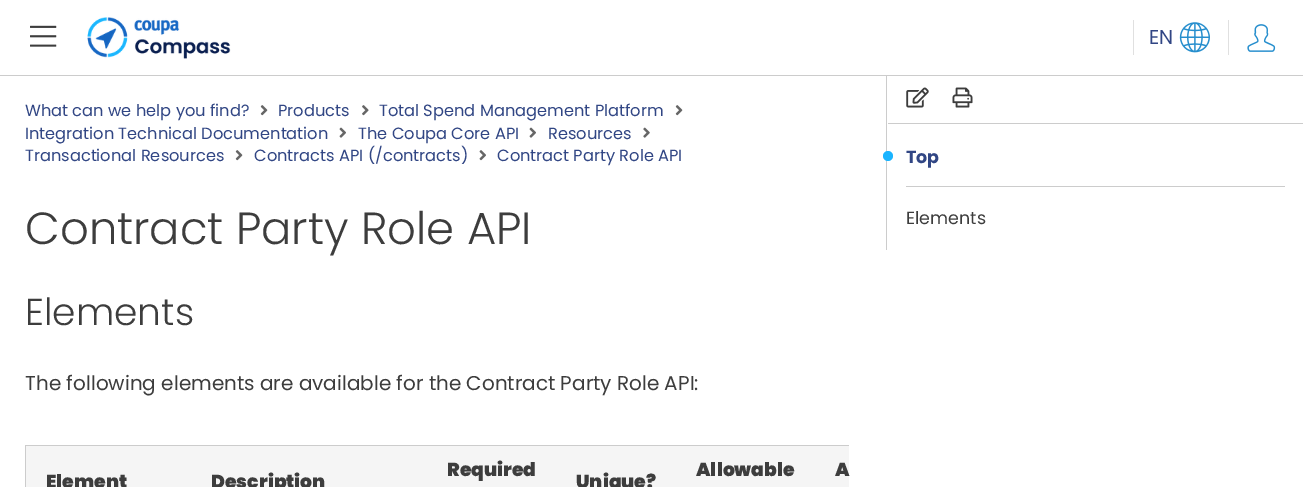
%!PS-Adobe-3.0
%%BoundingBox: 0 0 1303 487
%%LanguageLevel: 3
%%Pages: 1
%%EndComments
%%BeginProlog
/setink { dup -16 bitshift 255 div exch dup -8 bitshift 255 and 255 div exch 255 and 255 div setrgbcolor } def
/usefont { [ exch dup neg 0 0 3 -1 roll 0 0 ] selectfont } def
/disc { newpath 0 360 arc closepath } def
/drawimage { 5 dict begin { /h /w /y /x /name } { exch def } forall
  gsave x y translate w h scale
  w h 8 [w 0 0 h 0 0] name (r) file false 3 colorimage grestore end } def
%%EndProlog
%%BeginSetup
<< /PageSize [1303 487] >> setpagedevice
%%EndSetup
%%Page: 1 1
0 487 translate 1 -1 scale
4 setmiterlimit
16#FFFFFF setink
0 0 1303 487 rectfill
16#CCCCCC setink
886 75 1 175 rectfill
0 75 1303 1 rectfill
(img1.raw) 30 25 27 22 drawimage
(img2.raw) 87 17 144 42 drawimage
16#E0E0E0 setink
1133 20 1 35 rectfill
/Poppins-Regular 20 usefont
16#314684 setink
1149 44 moveto (EN) show
(img3.raw) 1179 22 31 31 drawimage
16#E0E0E0 setink
1228 20 1 35 rectfill
(img4.raw) 1247 24 29 28 drawimage
/Poppins-Regular 16.25 usefont
16#314684 setink
25 116 moveto (What can we help you find?) show
(img5.raw) 260 105 8 11 drawimage
278 116 moveto (Products) show
(img6.raw) 362 105 7 11 drawimage
379 116 moveto (Total Spend Management Platform) show
(img5.raw) 675 105 8 11 drawimage
25 139 moveto (Integration Technical Documentation) show
(img7.raw) 339 127 7 11 drawimage
358 139 moveto (The Coupa Core API) show
(img7.raw) 529 127 7 11 drawimage
548 139 moveto (Resources) show
(img8.raw) 643 127 7 11 drawimage
25 161 moveto (Transactional Resources) show
(img5.raw) 235 150 8 11 drawimage
254 161 moveto (Contracts API \(/contracts\)) show
(img9.raw) 479 150 7 11 drawimage
497 161 moveto (Contract Party Role API) show
/Poppins-Light 45 usefont
16#3D3D3D setink
25 244 moveto (Contract Party Role API) show
/Poppins-Light 37.5 usefont
25 325 moveto (Elements) show
/Poppins-Regular 20 usefont
25 390 moveto (The following elements are available for the Contract Party Role API:) show
[
    [25 445 824 1 16#CCCCCC]
    [25 445 1 42 16#CCCCCC]
    [26 446 823 41 16#F5F5F5]
] { aload pop setink rectfill } forall
/Poppins-Black 18.75 usefont
16#3D3D3D setink
[
    [(Required) 447 476]
    [(Allowable) 696 476]
    [(A) 835 476]
    [(Element) 46 488]
    [(Description) 211 488]
    [(Unique?) 576 488]
] { aload pop moveto show } forall
16#CCCCCC setink
888 123 415 1 rectfill
(img10.raw) 906 87 23 21 drawimage
(img11.raw) 952 87 21 21 drawimage
16#1AB4FF setink
888 156 5 disc fill
/Poppins-Bold 17.5 usefont
16#314684 setink
906 163 moveto (Top) show
16#CCCCCC setink
906 186 379 1 rectfill
/Poppins-Regular 17.5 usefont
16#3D3D3D setink
906 224 moveto (Elements) show
showpage
%%EOF
